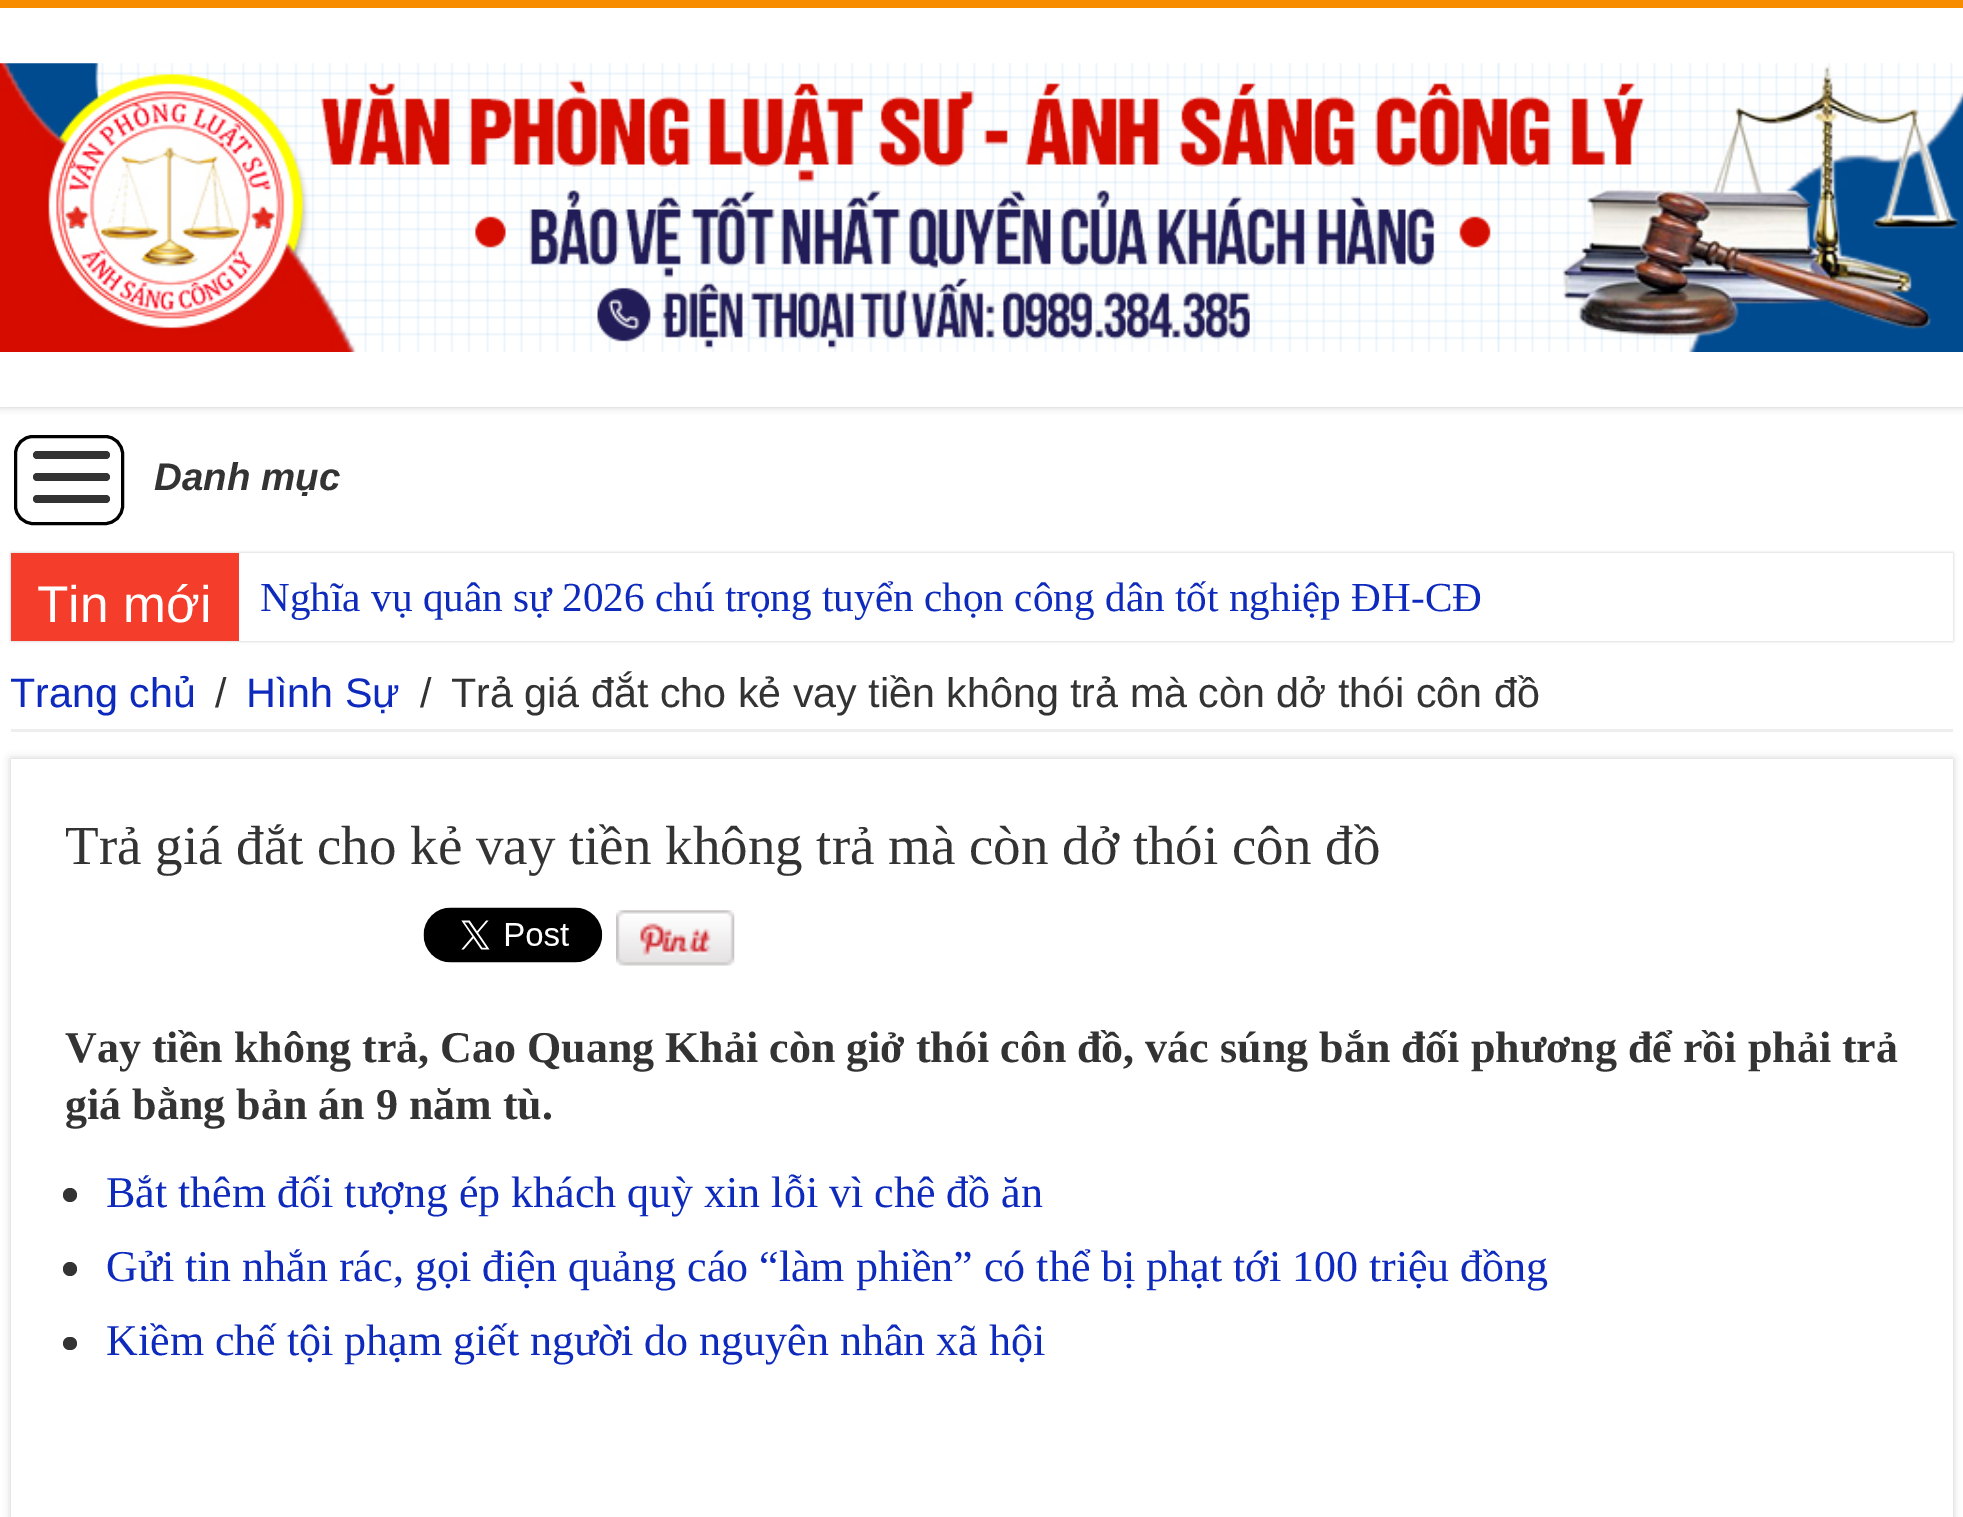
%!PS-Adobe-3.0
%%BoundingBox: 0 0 1963 1517
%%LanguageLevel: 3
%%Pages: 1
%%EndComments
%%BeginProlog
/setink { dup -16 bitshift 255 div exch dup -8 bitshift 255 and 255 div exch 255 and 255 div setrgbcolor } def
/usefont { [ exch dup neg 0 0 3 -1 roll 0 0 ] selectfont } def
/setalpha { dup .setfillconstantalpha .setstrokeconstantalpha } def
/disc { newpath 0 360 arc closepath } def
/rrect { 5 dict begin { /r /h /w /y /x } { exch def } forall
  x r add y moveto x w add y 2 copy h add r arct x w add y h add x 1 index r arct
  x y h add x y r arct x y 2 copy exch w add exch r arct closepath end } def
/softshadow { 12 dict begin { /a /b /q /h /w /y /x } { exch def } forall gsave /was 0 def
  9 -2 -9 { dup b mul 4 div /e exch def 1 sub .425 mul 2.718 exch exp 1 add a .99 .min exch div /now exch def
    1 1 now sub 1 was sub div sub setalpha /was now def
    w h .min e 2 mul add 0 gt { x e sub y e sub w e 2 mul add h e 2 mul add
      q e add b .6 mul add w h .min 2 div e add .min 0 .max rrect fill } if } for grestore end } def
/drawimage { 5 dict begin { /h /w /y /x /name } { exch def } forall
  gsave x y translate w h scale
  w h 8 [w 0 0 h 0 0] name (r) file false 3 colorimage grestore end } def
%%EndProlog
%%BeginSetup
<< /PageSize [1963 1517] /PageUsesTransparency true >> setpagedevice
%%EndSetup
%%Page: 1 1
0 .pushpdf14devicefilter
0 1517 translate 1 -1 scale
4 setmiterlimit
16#FFFFFF setink
0 0 1963 1517 rectfill
gsave
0 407 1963 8 rectclip
16#CACACA setink
0 0 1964 407 0 4 1 softshadow
grestore
16#F88C00 setink
0 0 1963 8 rectfill
(img1.raw) 0 63 1963 289 drawimage
16#000000 setink
3 setlinewidth
15.5 436.5 107 87 17.5 rrect stroke
16#333333 setink
33 451 77 8 4 rrect fill
33 473 77 8 4 rrect fill
33 495 77 8 4 rrect fill
/LiberationSans-BoldItalic 38.5 usefont
154 490 moveto (Danh mục) show
16#CACACA setink
11 553 1942 88 0 1.5 1 softshadow
16#FFFFFF setink
239 553 1714 88 rectfill
16#F43D2A setink
11 553 228 88 rectfill
/LiberationSans-Regular 51.5 usefont
16#FFFFFF setink
37 622 moveto (Tin mới) show
/LiberationSerif-Regular 41.25 usefont
16#0E2ABD setink
260 611 moveto (Nghĩa vụ quân sự 2026 chú trọng tuyển chọn công dân tốt nghiệp ĐH-CĐ) show
16#EEEEEE setink
11 729 1942 3 rectfill
/LiberationSans-Regular 41.25 usefont
16#0E2ABD setink
10 707 moveto (Trang chủ) show
16#333333 setink
215 707 moveto (/) show
16#0E2ABD setink
246 707 moveto (Hình Sự) show
16#333333 setink
420 707 moveto (/) show
451 707 moveto (Trả giá đắt cho kẻ vay tiền không trả mà còn dở thói côn đồ) show
16#CACACA setink
11 759 1942 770 0 4 1 softshadow
16#FFFFFF setink
11 759 1942 758 rectfill
/LiberationSerif-Regular 55 usefont
16#333333 setink
65 864 moveto (Trả giá đắt cho kẻ vay tiền không trả mà còn dở thói côn đồ) show
(img2.raw) 423 907 180 56 drawimage
(img3.raw) 616 910 119 56 drawimage
/LiberationSerif-Bold 44 usefont
65 1062 moveto (Vay tiền không trả, Cao Quang Khải còn giở thói côn đồ, vác súng bắn đối phương để rồi phải trả) show
65 1119 moveto (giá bằng bản án 9 năm tù.) show
70 1195 7 disc fill
/LiberationSerif-Regular 44 usefont
16#0E2ABD setink
106 1207 moveto (Bắt thêm đối tượng ép khách quỳ xin lỗi vì chê đồ ăn) show
16#333333 setink
70 1269 7 disc fill
16#0E2ABD setink
106 1281 moveto (Gửi tin nhắn rác, gọi điện quảng cáo “làm phiền” có thể bị phạt tới 100 triệu đồng) show
16#333333 setink
63 1337 14 13 6.5 rrect fill
16#0E2ABD setink
106 1355 moveto (Kiềm chế tội phạm giết người do nguyên nhân xã hội) show
.poppdf14devicefilter showpage
%%EOF
